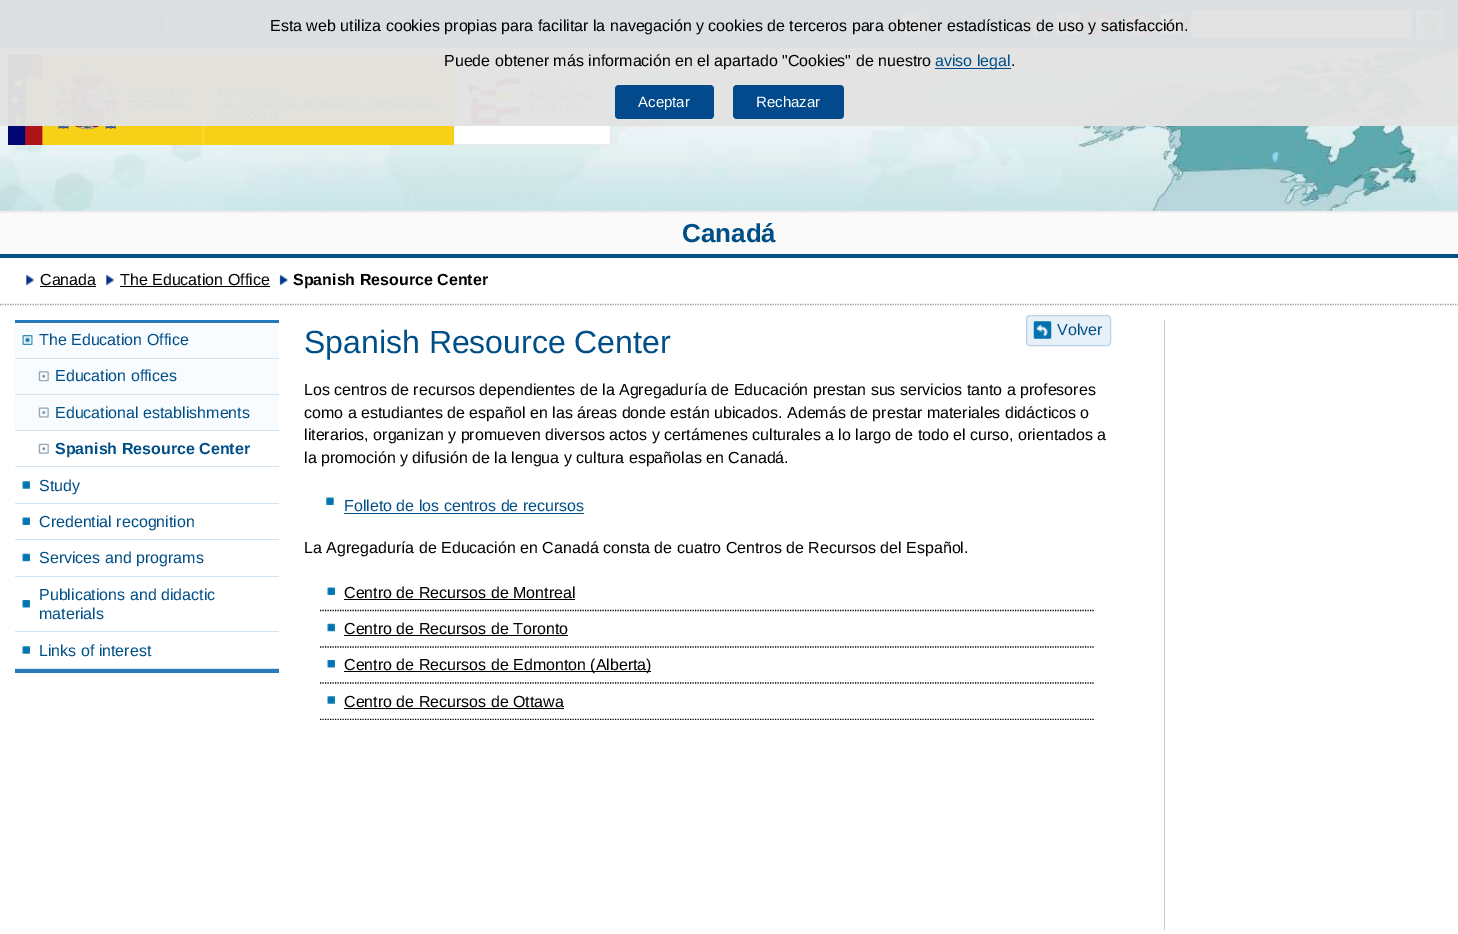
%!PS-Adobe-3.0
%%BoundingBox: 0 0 1458 934
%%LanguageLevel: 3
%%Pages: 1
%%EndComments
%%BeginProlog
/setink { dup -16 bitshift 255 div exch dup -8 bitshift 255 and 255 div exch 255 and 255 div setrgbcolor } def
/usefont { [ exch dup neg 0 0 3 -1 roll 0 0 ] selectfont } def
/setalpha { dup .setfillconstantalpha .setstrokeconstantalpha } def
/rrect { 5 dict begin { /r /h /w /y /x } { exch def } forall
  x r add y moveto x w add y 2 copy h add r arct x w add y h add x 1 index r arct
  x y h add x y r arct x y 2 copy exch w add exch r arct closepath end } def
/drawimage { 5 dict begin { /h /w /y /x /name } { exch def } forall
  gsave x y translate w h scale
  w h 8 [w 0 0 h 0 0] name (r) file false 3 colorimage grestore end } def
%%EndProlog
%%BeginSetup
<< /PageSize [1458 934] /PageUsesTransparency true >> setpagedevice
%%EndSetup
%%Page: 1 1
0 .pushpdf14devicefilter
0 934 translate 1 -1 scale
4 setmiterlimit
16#277BBA setink
0 0 1458 934 rectfill
16#FFFFFF setink
166 13 1 21 rectfill
(img1.raw) 900 11 25 26 drawimage
(img2.raw) 1022 12 23 23 drawimage
(img3.raw) 1057 12 23 23 drawimage
(img4.raw) 1091 12 23 23 drawimage
(img5.raw) 1126 12 23 23 drawimage
(img6.raw) 1158 12 24 23 drawimage
1195 10.5 moveto 1410.5 10.5 lineto 1410.5 37.5 lineto 1195 37.5 lineto 1193 37.5 1191.5 36 1191.5 34 curveto 1191.5 14 lineto 1191.5 12 1193 10.5 1195 10.5 curveto closepath gsave fill grestore
16#F2F2F2 setink
stroke
(img7.raw) 1417 11 26 26 drawimage
16#FFFFFF setink
1416.5 10.5 moveto 1440 10.5 lineto 1442 10.5 1443.5 12 1443.5 14 curveto 1443.5 34 lineto 1443.5 36 1442 37.5 1440 37.5 curveto 1416.5 37.5 lineto closepath stroke
(img8.raw) 0 47 1458 164 drawimage
(img9.raw) 8 55 604 90 drawimage
0.97 setalpha
16#E2E2E2 setink
0 0 1458 126 rectfill
/LiberationSans-Regular 16 usefont
1 setalpha
16#000000 setink
270 31 moveto (Esta web utiliza cookies propias para facilitar la navegación y cookies de terceros para obtener estadísticas de uso y satisfacción.) show
444 66 moveto (Puede obtener más información en el apartado "Cookies" de nuestro) show
16#024A8B setink
935 68 76 1 rectfill
16#004E86 setink
935 66 moveto (aviso legal) show
16#000000 setink
1011 66 moveto (.) show
16#024A8B setink
615 85 99 34 4 rrect fill
/LiberationSans-Regular 15 usefont
16#FFFFFF setink
638 107 moveto (Aceptar) show
16#024A8B setink
733 85 111 34 4 rrect fill
16#FFFFFF setink
756 107 moveto (Rechazar) show
16#004E86 setink
0 254 1458 4 rectfill
16#FAFAFA setink
0 211 1458 43 rectfill
16#DDDDDD setink
1.2 setlinewidth
[1.25 1.25] 0 setdash
0 212 moveto 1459 212 lineto stroke
/LiberationSans-Bold 26 usefont
16#004E86 setink
682 242 moveto (Canadá) show
16#FFFFFF setink
0 258 1458 676 rectfill
16#999999 setink
0 304.5 moveto 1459 304.5 lineto stroke
(img10.raw) 26 274 8 12 drawimage
/LiberationSans-Regular 16 usefont
16#000000 setink
40 285 moveto (Canada) show
40 286 56 1 rectfill
(img11.raw) 106 274 8 12 drawimage
120 285 moveto (The Education Office) show
120 286 150 1 rectfill
(img12.raw) 279 274 9 12 drawimage
/LiberationSans-Bold 16 usefont
293 285 moveto (Spanish Resource Center) show
[
    [15 669 264 4 16#277BBA]
    [15 320 264 3 16#277BBA]
    [15 323 264 107 16#F8FCFF]
] { aload pop setink rectfill } forall
(img13.raw) 22 335 11 10 drawimage
16#D3E3EF setink
15 358 264 1 rectfill
/LiberationSans-Regular 16 usefont
16#004E86 setink
39 345 moveto (The Education Office) show
(img14.raw) 38 371 11 11 drawimage
16#D3E3EF setink
15 394 264 1 rectfill
16#004E86 setink
55 381 moveto (Education offices) show
(img15.raw) 38 407 11 11 drawimage
16#D3E3EF setink
15 430 264 1 rectfill
16#004E86 setink
55 418 moveto (Educational establishments) show
(img16.raw) 38 443 11 11 drawimage
16#D3E3EF setink
15 466 264 1 rectfill
/LiberationSans-Bold 16 usefont
16#004E86 setink
55 454 moveto (Spanish Resource Center) show
(img17.raw) 22 481 8 8 drawimage
16#D3E3EF setink
15 503 264 1 rectfill
/LiberationSans-Regular 16 usefont
16#004E86 setink
39 491 moveto (Study) show
(img18.raw) 22 517 8 8 drawimage
16#D3E3EF setink
15 539 264 1 rectfill
16#004E86 setink
39 527 moveto (Credential recognition) show
(img19.raw) 22 553 8 9 drawimage
16#D3E3EF setink
15 576 264 1 rectfill
16#004E86 setink
39 563 moveto (Services and programs) show
(img20.raw) 22 600 8 8 drawimage
16#D3E3EF setink
15 631 264 1 rectfill
16#004E86 setink
39 600 moveto (Publications and didactic) show
39 619 moveto (materials) show
(img17.raw) 22 646 8 8 drawimage
16#D3E3EF setink
15 668 264 1 rectfill
16#004E86 setink
39 656 moveto (Links of interest) show
/LiberationSans-Regular 32 usefont
304 353 moveto (Spanish Resource Center) show
16#E8F0F7 setink
1026 315 85 31 4 rrect fill
(img21.raw) 1033 321 19 18 drawimage
16#B9D2EA setink
1 setlinewidth
[] 0 setdash
1026.5 315.5 84 30 3.5 rrect stroke
/LiberationSans-Regular 16 usefont
16#004E86 setink
1057 335 moveto (Volver) show
16#000000 setink
[
    [(Los centros de recursos dependientes de la Agregaduría de Educación prestan sus servicios tanto a profesores) 304 395]
    [(como a estudiantes de español en las áreas donde están ubicados. Además de prestar materiales didácticos o) 304 418]
    [(literarios, organizan y promueven diversos actos y certámenes culturales a lo largo de todo el curso, orientados a) 304 440]
    [(la promoción y difusión de la lengua y cultura españolas en Canadá.) 304 463]
] { aload pop moveto show } forall
(img22.raw) 326 497 8 8 drawimage
16#004E86 setink
344 511 moveto (Folleto de los centros de recursos) show
344 513 240 1 rectfill
16#000000 setink
304 553 moveto (La Agregaduría de Educación en Canadá consta de cuatro Centros de Recursos del Español.) show
(img18.raw) 327 587 8 8 drawimage
1.2 setlinewidth
[1.25 1.25] 0 setdash
320 610.5 moveto 1095 610.5 lineto stroke
344 598 moveto (Centro de Recursos de Montreal) show
344 599 231 1 rectfill
(img19.raw) 327 623 8 9 drawimage
320 647 moveto 1095 647 lineto stroke
344 634 moveto (Centro de Recursos de Toronto) show
344 635 224 1 rectfill
(img20.raw) 327 660 8 8 drawimage
320 683 moveto 1095 683 lineto stroke
344 671 307 1 rectfill
344 670 moveto (Centro de Recursos de Edmonton \(Alberta\)) show
(img17.raw) 327 696 8 8 drawimage
gsave
320 575 775 145 rectclip
320 719.5 moveto 1095 719.5 lineto stroke
grestore
344 707 moveto (Centro de Recursos de Ottawa) show
344 708 220 1 rectfill
16#CCCCCC setink
1164 320 1 610 rectfill
.poppdf14devicefilter showpage
%%EOF
